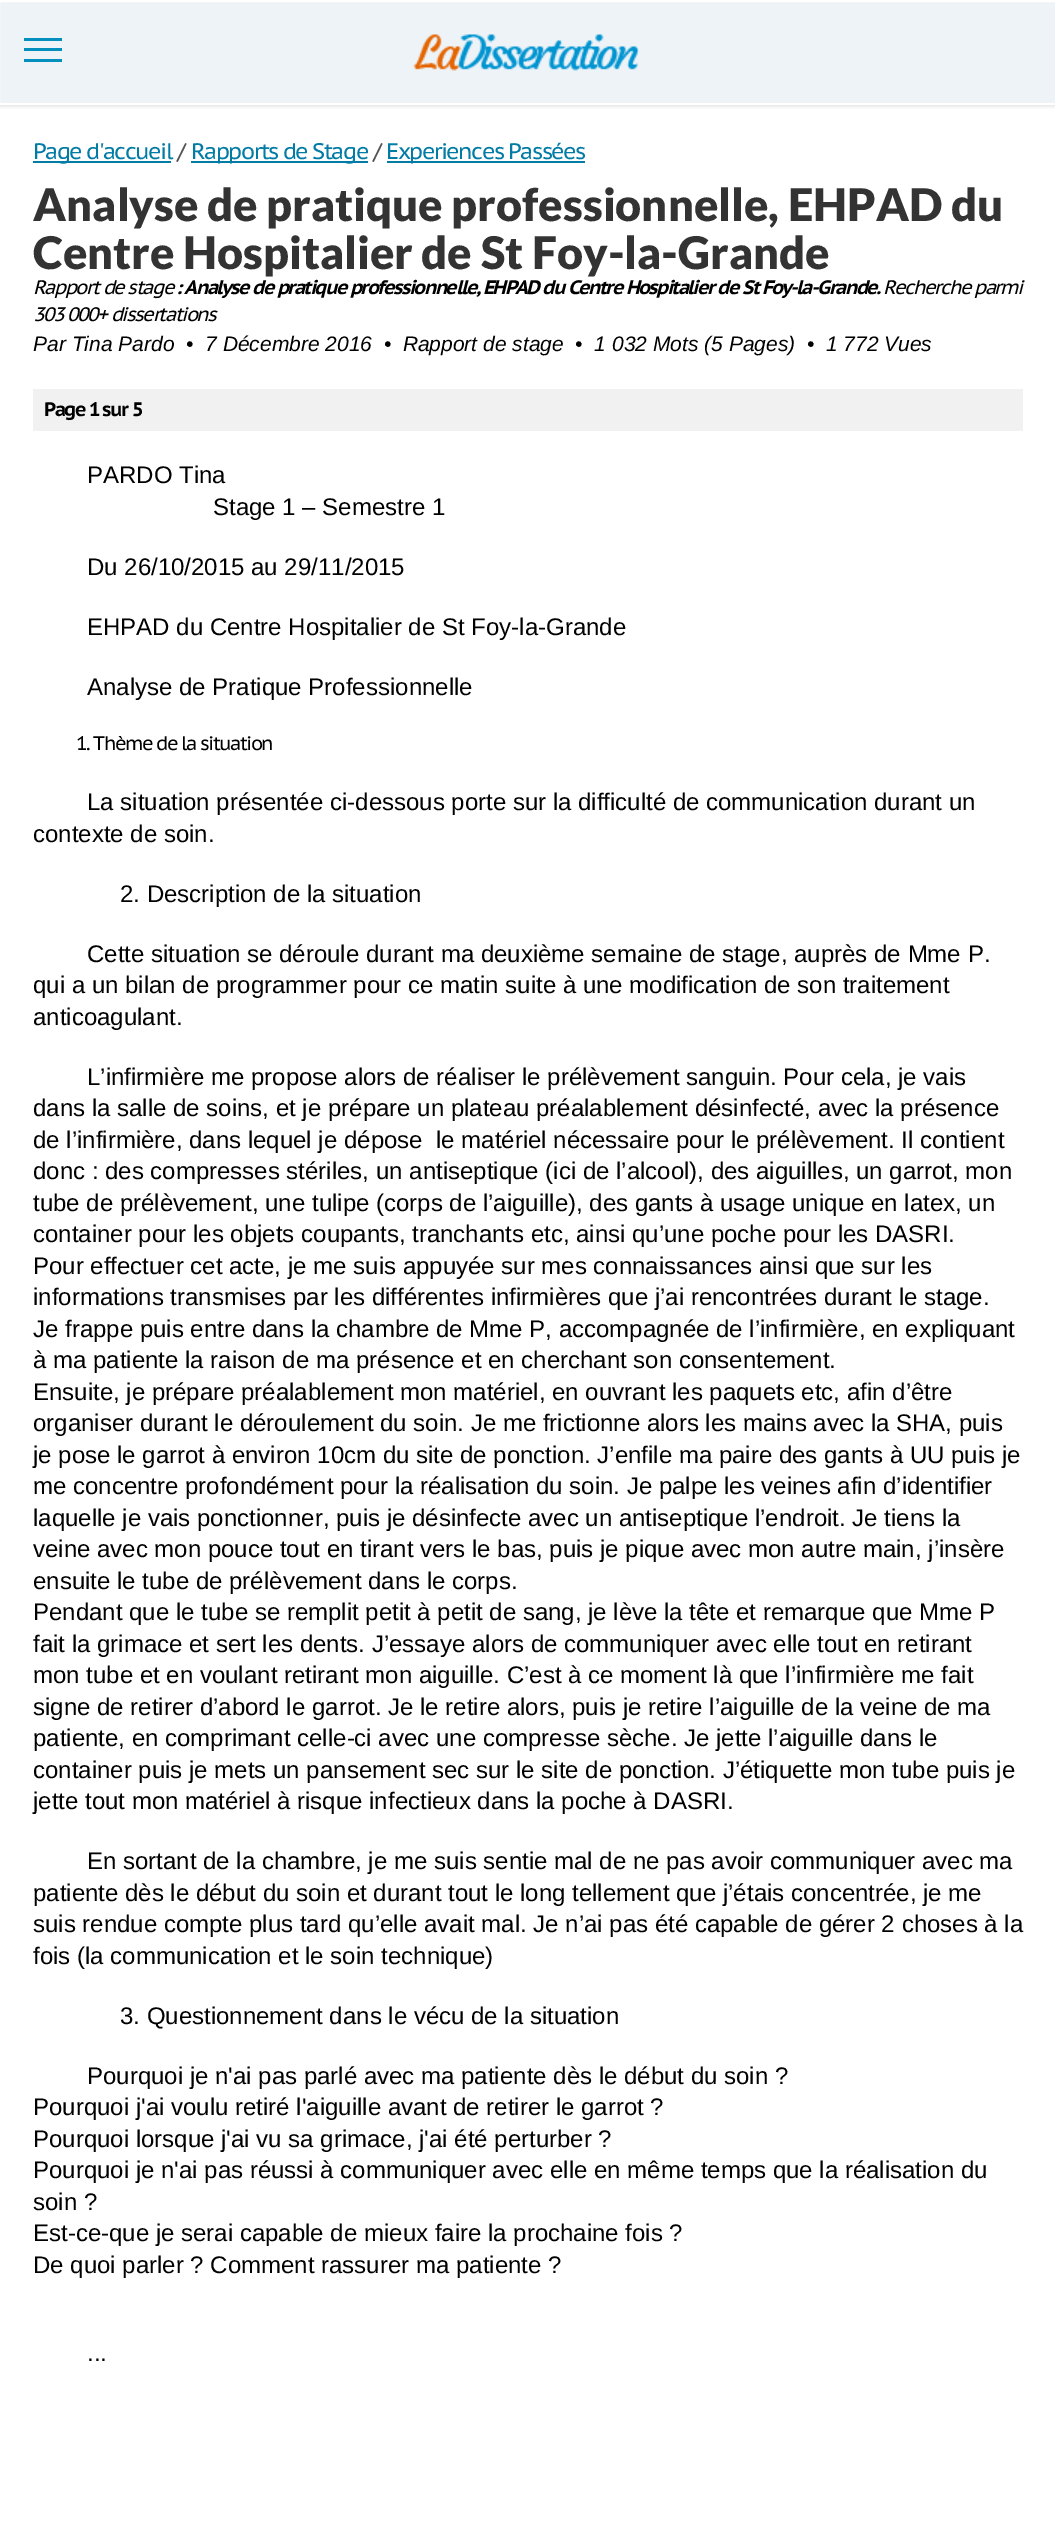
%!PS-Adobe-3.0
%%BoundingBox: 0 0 1055 2524
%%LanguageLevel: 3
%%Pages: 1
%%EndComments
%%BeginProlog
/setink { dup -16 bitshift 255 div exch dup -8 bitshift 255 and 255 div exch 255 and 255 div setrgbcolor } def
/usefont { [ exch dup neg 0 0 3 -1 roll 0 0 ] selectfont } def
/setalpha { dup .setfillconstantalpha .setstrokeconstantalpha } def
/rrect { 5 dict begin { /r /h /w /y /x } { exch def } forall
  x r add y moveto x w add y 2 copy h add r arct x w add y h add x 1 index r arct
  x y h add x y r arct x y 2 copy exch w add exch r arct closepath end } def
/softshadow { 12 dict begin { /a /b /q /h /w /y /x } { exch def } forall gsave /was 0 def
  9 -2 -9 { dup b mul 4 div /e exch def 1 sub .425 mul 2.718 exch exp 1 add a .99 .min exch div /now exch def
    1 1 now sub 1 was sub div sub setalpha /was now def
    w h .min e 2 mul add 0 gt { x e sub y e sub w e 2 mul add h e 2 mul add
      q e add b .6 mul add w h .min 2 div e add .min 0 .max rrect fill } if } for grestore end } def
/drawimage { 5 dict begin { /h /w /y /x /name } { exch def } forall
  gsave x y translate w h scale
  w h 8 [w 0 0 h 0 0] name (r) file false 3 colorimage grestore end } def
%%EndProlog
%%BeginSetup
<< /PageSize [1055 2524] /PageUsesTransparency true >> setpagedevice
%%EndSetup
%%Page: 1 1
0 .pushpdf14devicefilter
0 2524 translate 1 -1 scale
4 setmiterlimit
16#FFFFFF setink
0 0 1055 2524 rectfill
16#000000 setink
-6 0 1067 105 0 2 0.25 softshadow
16#EDF3F7 setink
-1 1 moveto 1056 1 lineto 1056 104 lineto -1 104 lineto closepath gsave fill grestore
16#FFFFFF setink
2 setlinewidth
stroke
[
    [24 38 38 3 16#038FBE]
    [24 48 38 3 16#038FBE]
    [24 59 38 3 16#038FBE]
] { aload pop setink rectfill } forall
(img1.raw) 413 34 226 37 drawimage
16#027CA5 setink
33 161 138 2 rectfill
/PTSansCaption-Regular 22.5 usefont
33 159 moveto -1.55 0 (Page d'accueil) ashow
16#555555 setink
177 159 moveto -1.55 0 (/) ashow
16#027CA5 setink
191 161 177 2 rectfill
191 159 moveto -1.55 0 (Rapports de Stage) ashow
16#555555 setink
373 159 moveto -1.55 0 (/) ashow
16#027CA5 setink
387 161 198 2 rectfill
386 159 moveto -1.55 0 (Experiences Passées) ashow
/Lato-Black 45 usefont
16#333333 setink
33 221 moveto (Analyse de pratique professionnelle, EHPAD du) show
33 269 moveto (Centre Hospitalier de St Foy-la-Grande) show
/PTSansCaption-Italic 19.5 usefont
16#000000 setink
33 294 moveto -1.55 0 (Rapport de stage) ashow
/PTSansCaption-BoldItalic 19.5 usefont
176 294 moveto -1.55 0 (: Analyse de pratique professionnelle, EHPAD du Centre Hospitalier de St Foy-la-Grande.) ashow
/PTSansCaption-Italic 19.5 usefont
883 294 moveto -1.55 0 (Recherche parmi) ashow
33 321 moveto -1.55 0 (303 000+ dissertations) ashow
/LiberationSans-Italic 21 usefont
33 351 moveto (Par Tina Pardo) show
186 351 moveto (•  7 Décembre 2016  •  Rapport de stage  •  1 032 Mots \(5 Pages\)  •  1 772 Vues) show
16#F1F1F1 setink
33 389 990 42 rectfill
/PTSansCaption-Bold 19.5 usefont
16#000000 setink
44 416 moveto -1.55 0 (Page 1 sur 5) ashow
/LiberationSans-Regular 24 usefont
[
    [(PARDO Tina) 87 483]
    [(Stage 1 – Semestre 1) 213 515]
    [(Du 26/10/2015 au 29/11/2015) 87 575]
    [(EHPAD du Centre Hospitalier de St Foy-la-Grande) 87 635]
    [(Analyse de Pratique Professionnelle) 87 695]
] { aload pop moveto show } forall
/PTSansCaption-Regular 19.5 usefont
76 750 moveto -1.55 0 (1. Thème de la situation) ashow
/LiberationSans-Regular 24 usefont
[
    [(La situation présentée ci-dessous porte sur la difficulté de communication durant un) 87 810]
    [(contexte de soin.) 33 842]
    [(2. Description de la situation) 120 902]
    [(Cette situation se déroule durant ma deuxième semaine de stage, auprès de Mme P.) 87 962]
    [(qui a un bilan de programmer pour ce matin suite à une modification de son traitement) 33 993]
    [(anticoagulant.) 33 1025]
    [(L’infirmière me propose alors de réaliser le prélèvement sanguin. Pour cela, je vais) 87 1085]
    [(dans la salle de soins, et je prépare un plateau préalablement désinfecté, avec la présence) 33 1116]
    [(de l’infirmière, dans lequel je dépose  le matériel nécessaire pour le prélèvement. Il contient) 33 1148]
    [(donc : des compresses stériles, un antiseptique \(ici de l’alcool\), des aiguilles, un garrot, mon) 33 1179]
    [(tube de prélèvement, une tulipe \(corps de l’aiguille\), des gants à usage unique en latex, un) 33 1211]
    [(container pour les objets coupants, tranchants etc, ainsi qu’une poche pour les DASRI.) 33 1242]
    [(Pour effectuer cet acte, je me suis appuyée sur mes connaissances ainsi que sur les) 33 1274]
    [(informations transmises par les différentes infirmières que j’ai rencontrées durant le stage.) 33 1305]
    [(Je frappe puis entre dans la chambre de Mme P, accompagnée de l’infirmière, en expliquant) 33 1337]
    [(à ma patiente la raison de ma présence et en cherchant son consentement.) 33 1368]
    [(Ensuite, je prépare préalablement mon matériel, en ouvrant les paquets etc, afin d’être) 33 1400]
    [(organiser durant le déroulement du soin. Je me frictionne alors les mains avec la SHA, puis) 33 1431]
    [(je pose le garrot à environ 10cm du site de ponction. J’enfile ma paire des gants à UU puis je) 33 1463]
    [(me concentre profondément pour la réalisation du soin. Je palpe les veines afin d’identifier) 33 1494]
    [(laquelle je vais ponctionner, puis je désinfecte avec un antiseptique l’endroit. Je tiens la) 33 1526]
    [(veine avec mon pouce tout en tirant vers le bas, puis je pique avec mon autre main, j’insère) 33 1557]
    [(ensuite le tube de prélèvement dans le corps.) 33 1589]
    [(Pendant que le tube se remplit petit à petit de sang, je lève la tête et remarque que Mme P) 33 1620]
    [(fait la grimace et sert les dents. J’essaye alors de communiquer avec elle tout en retirant) 33 1652]
    [(mon tube et en voulant retirant mon aiguille. C’est à ce moment là que l’infirmière me fait) 33 1683]
    [(signe de retirer d’abord le garrot. Je le retire alors, puis je retire l’aiguille de la veine de ma) 33 1715]
    [(patiente, en comprimant celle-ci avec une compresse sèche. Je jette l’aiguille dans le) 33 1746]
    [(container puis je mets un pansement sec sur le site de ponction. J’étiquette mon tube puis je) 33 1778]
    [(jette tout mon matériel à risque infectieux dans la poche à DASRI.) 33 1809]
    [(En sortant de la chambre, je me suis sentie mal de ne pas avoir communiquer avec ma) 87 1869]
    [(patiente dès le début du soin et durant tout le long tellement que j’étais concentrée, je me) 33 1901]
    [(suis rendue compte plus tard qu’elle avait mal. Je n’ai pas été capable de gérer 2 choses à la) 33 1932]
    [(fois \(la communication et le soin technique\)) 33 1964]
    [(3. Questionnement dans le vécu de la situation) 120 2024]
    [(Pourquoi je n'ai pas parlé avec ma patiente dès le début du soin ?) 87 2084]
    [(Pourquoi j'ai voulu retiré l'aiguille avant de retirer le garrot ?) 33 2115]
    [(Pourquoi lorsque j'ai vu sa grimace, j'ai été perturber ?) 33 2147]
    [(Pourquoi je n'ai pas réussi à communiquer avec elle en même temps que la réalisation du) 33 2178]
    [(soin ?) 33 2210]
    [(Est-ce-que je serai capable de mieux faire la prochaine fois ?) 33 2241]
    [(De quoi parler ? Comment rassurer ma patiente ?) 33 2273]
    [(...) 87 2361]
] { aload pop moveto show } forall
.poppdf14devicefilter showpage
%%EOF
